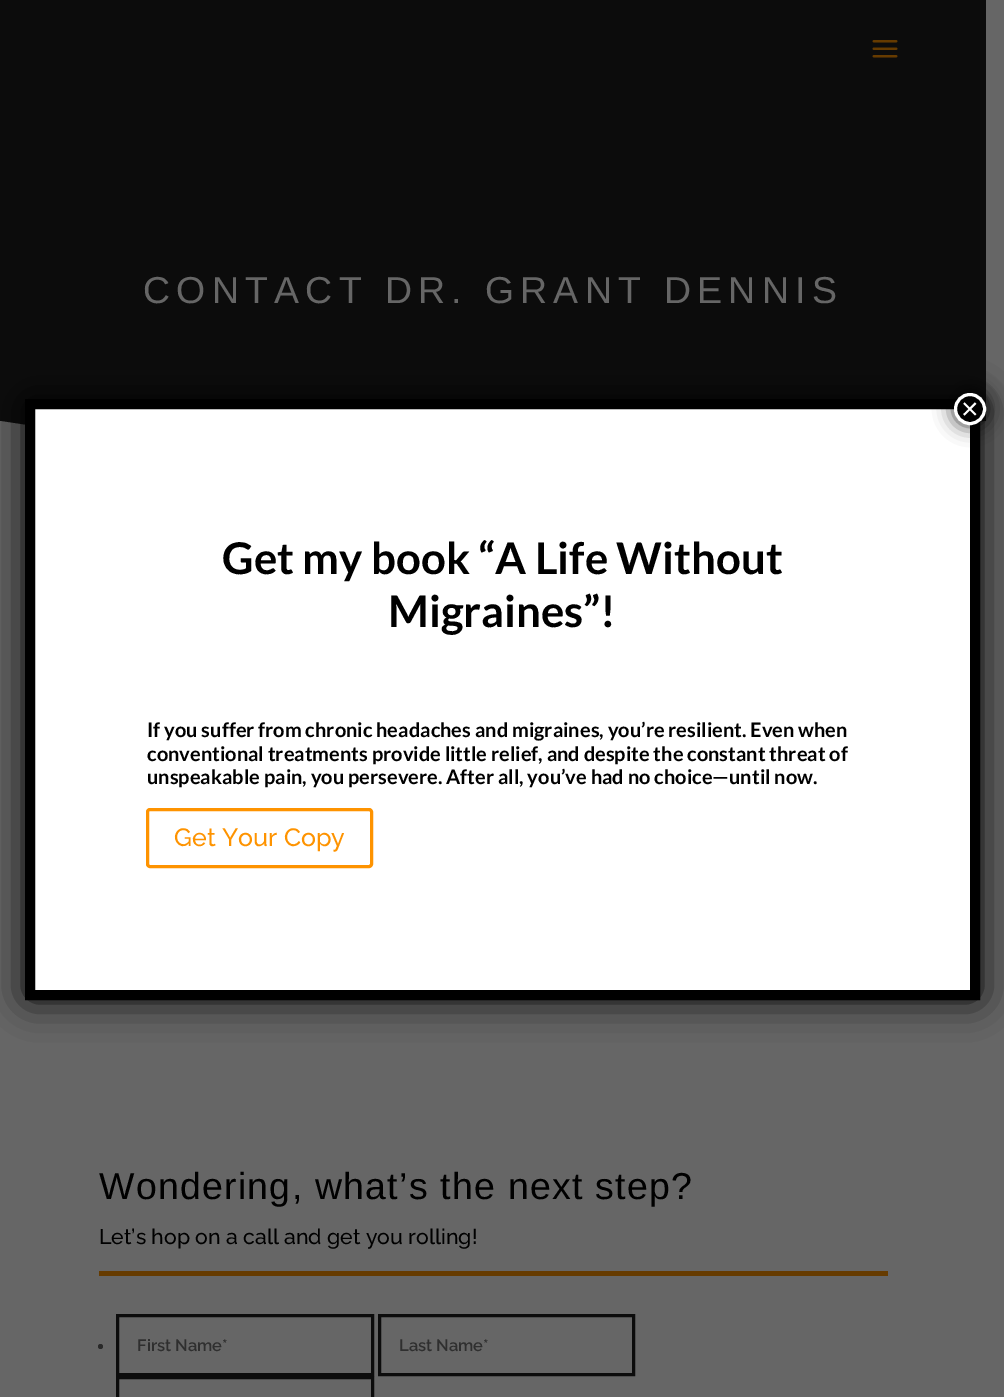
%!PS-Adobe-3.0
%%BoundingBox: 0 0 1004 1397
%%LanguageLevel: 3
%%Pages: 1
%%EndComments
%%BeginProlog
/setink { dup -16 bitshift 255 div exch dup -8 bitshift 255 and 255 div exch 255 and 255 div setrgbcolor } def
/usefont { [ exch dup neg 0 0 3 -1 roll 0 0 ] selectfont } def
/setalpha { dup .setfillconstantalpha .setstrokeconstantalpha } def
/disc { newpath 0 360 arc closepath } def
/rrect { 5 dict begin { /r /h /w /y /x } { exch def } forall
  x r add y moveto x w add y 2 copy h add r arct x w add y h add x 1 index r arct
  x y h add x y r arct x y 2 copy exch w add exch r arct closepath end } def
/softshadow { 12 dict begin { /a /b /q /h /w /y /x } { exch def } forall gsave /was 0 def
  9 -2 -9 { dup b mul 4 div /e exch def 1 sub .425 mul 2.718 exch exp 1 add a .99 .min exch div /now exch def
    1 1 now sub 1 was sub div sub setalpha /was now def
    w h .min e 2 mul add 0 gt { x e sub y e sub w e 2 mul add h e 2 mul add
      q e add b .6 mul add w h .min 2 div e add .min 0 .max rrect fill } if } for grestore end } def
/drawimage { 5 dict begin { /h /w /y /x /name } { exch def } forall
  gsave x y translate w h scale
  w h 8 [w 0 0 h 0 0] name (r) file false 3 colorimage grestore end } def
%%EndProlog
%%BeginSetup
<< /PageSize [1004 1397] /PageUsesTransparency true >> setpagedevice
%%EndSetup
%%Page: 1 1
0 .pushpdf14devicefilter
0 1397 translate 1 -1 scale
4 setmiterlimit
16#666666 setink
0 0 1004 1397 rectfill
16#0C0C0C setink
0 0 986 425 rectfill
(img1.raw) 872 40 26 18 drawimage
/LiberationSans-Regular 37.5 usefont
16#666666 setink
143 303 moveto 6.25 0 (CONTACT DR. GRANT DENNIS) ashow
493 496 moveto 0 421 lineto 0 496 lineto 986 496 lineto 986 421 lineto closepath fill
16#663B00 setink
99 1271 789 5 rectfill
16#000000 setink
99 1199 moveto 1.25 0 (Wondering, what’s the next step?) ashow
/Raleway-Medium 21.25 usefont
99 1244 moveto (Let’s hop on a call and get you rolling!) show
16#292929 setink
100.5 1346.5 2.5 disc fill
16#0C0C0C setink
3 setlinewidth
117.5 1315.5 255 59 rectstroke
/Raleway-SemiBold 16.5 usefont
16#2F2F2F setink
137 1351 moveto (First Name*) show
16#0C0C0C setink
379.5 1315.5 254 59 rectstroke
16#2F2F2F setink
399 1351 moveto (Last Name*) show
16#0C0C0C setink
117.5 1377.5 255 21 rectstroke
16#020202 setink
25 399 955 601 4 19 1 softshadow
16#FFFFFF setink
35 409 935 581 rectfill
16#000000 setink
10 setlinewidth
30 404 moveto 975 404 lineto 975 995 lineto 30 995 lineto closepath stroke
16#020202 setink
953 391 35 35 17.5 9.5 0.75 softshadow
16#000000 setink
970 409 14.5 disc gsave fill grestore
16#FFFFFF setink
3 setlinewidth
stroke
/LiberationSans-Regular 30 usefont
961 419 moveto (×) show
/Lato-Bold 43.75 usefont
16#000000 setink
222 574 moveto (Get my book “A Life Without) show
388 627 moveto (Migraines”!) show
/Lato-Bold 20 usefont
[
    [(If you suffer from chronic headaches and migraines, you’re resilient. Even when) 147 737]
    [(conventional treatments provide little relief, and despite the constant threat of) 147 761]
    [(unspeakable pain, you persevere. After all, you’ve had no choice—until now.) 147 784]
] { aload pop moveto show } forall
16#FE9300 setink
147.5 809.5 224 57 2.5 rrect stroke
/Raleway-Medium 25 usefont
174 846 moveto (Get Your Copy) show
.poppdf14devicefilter showpage
%%EOF
